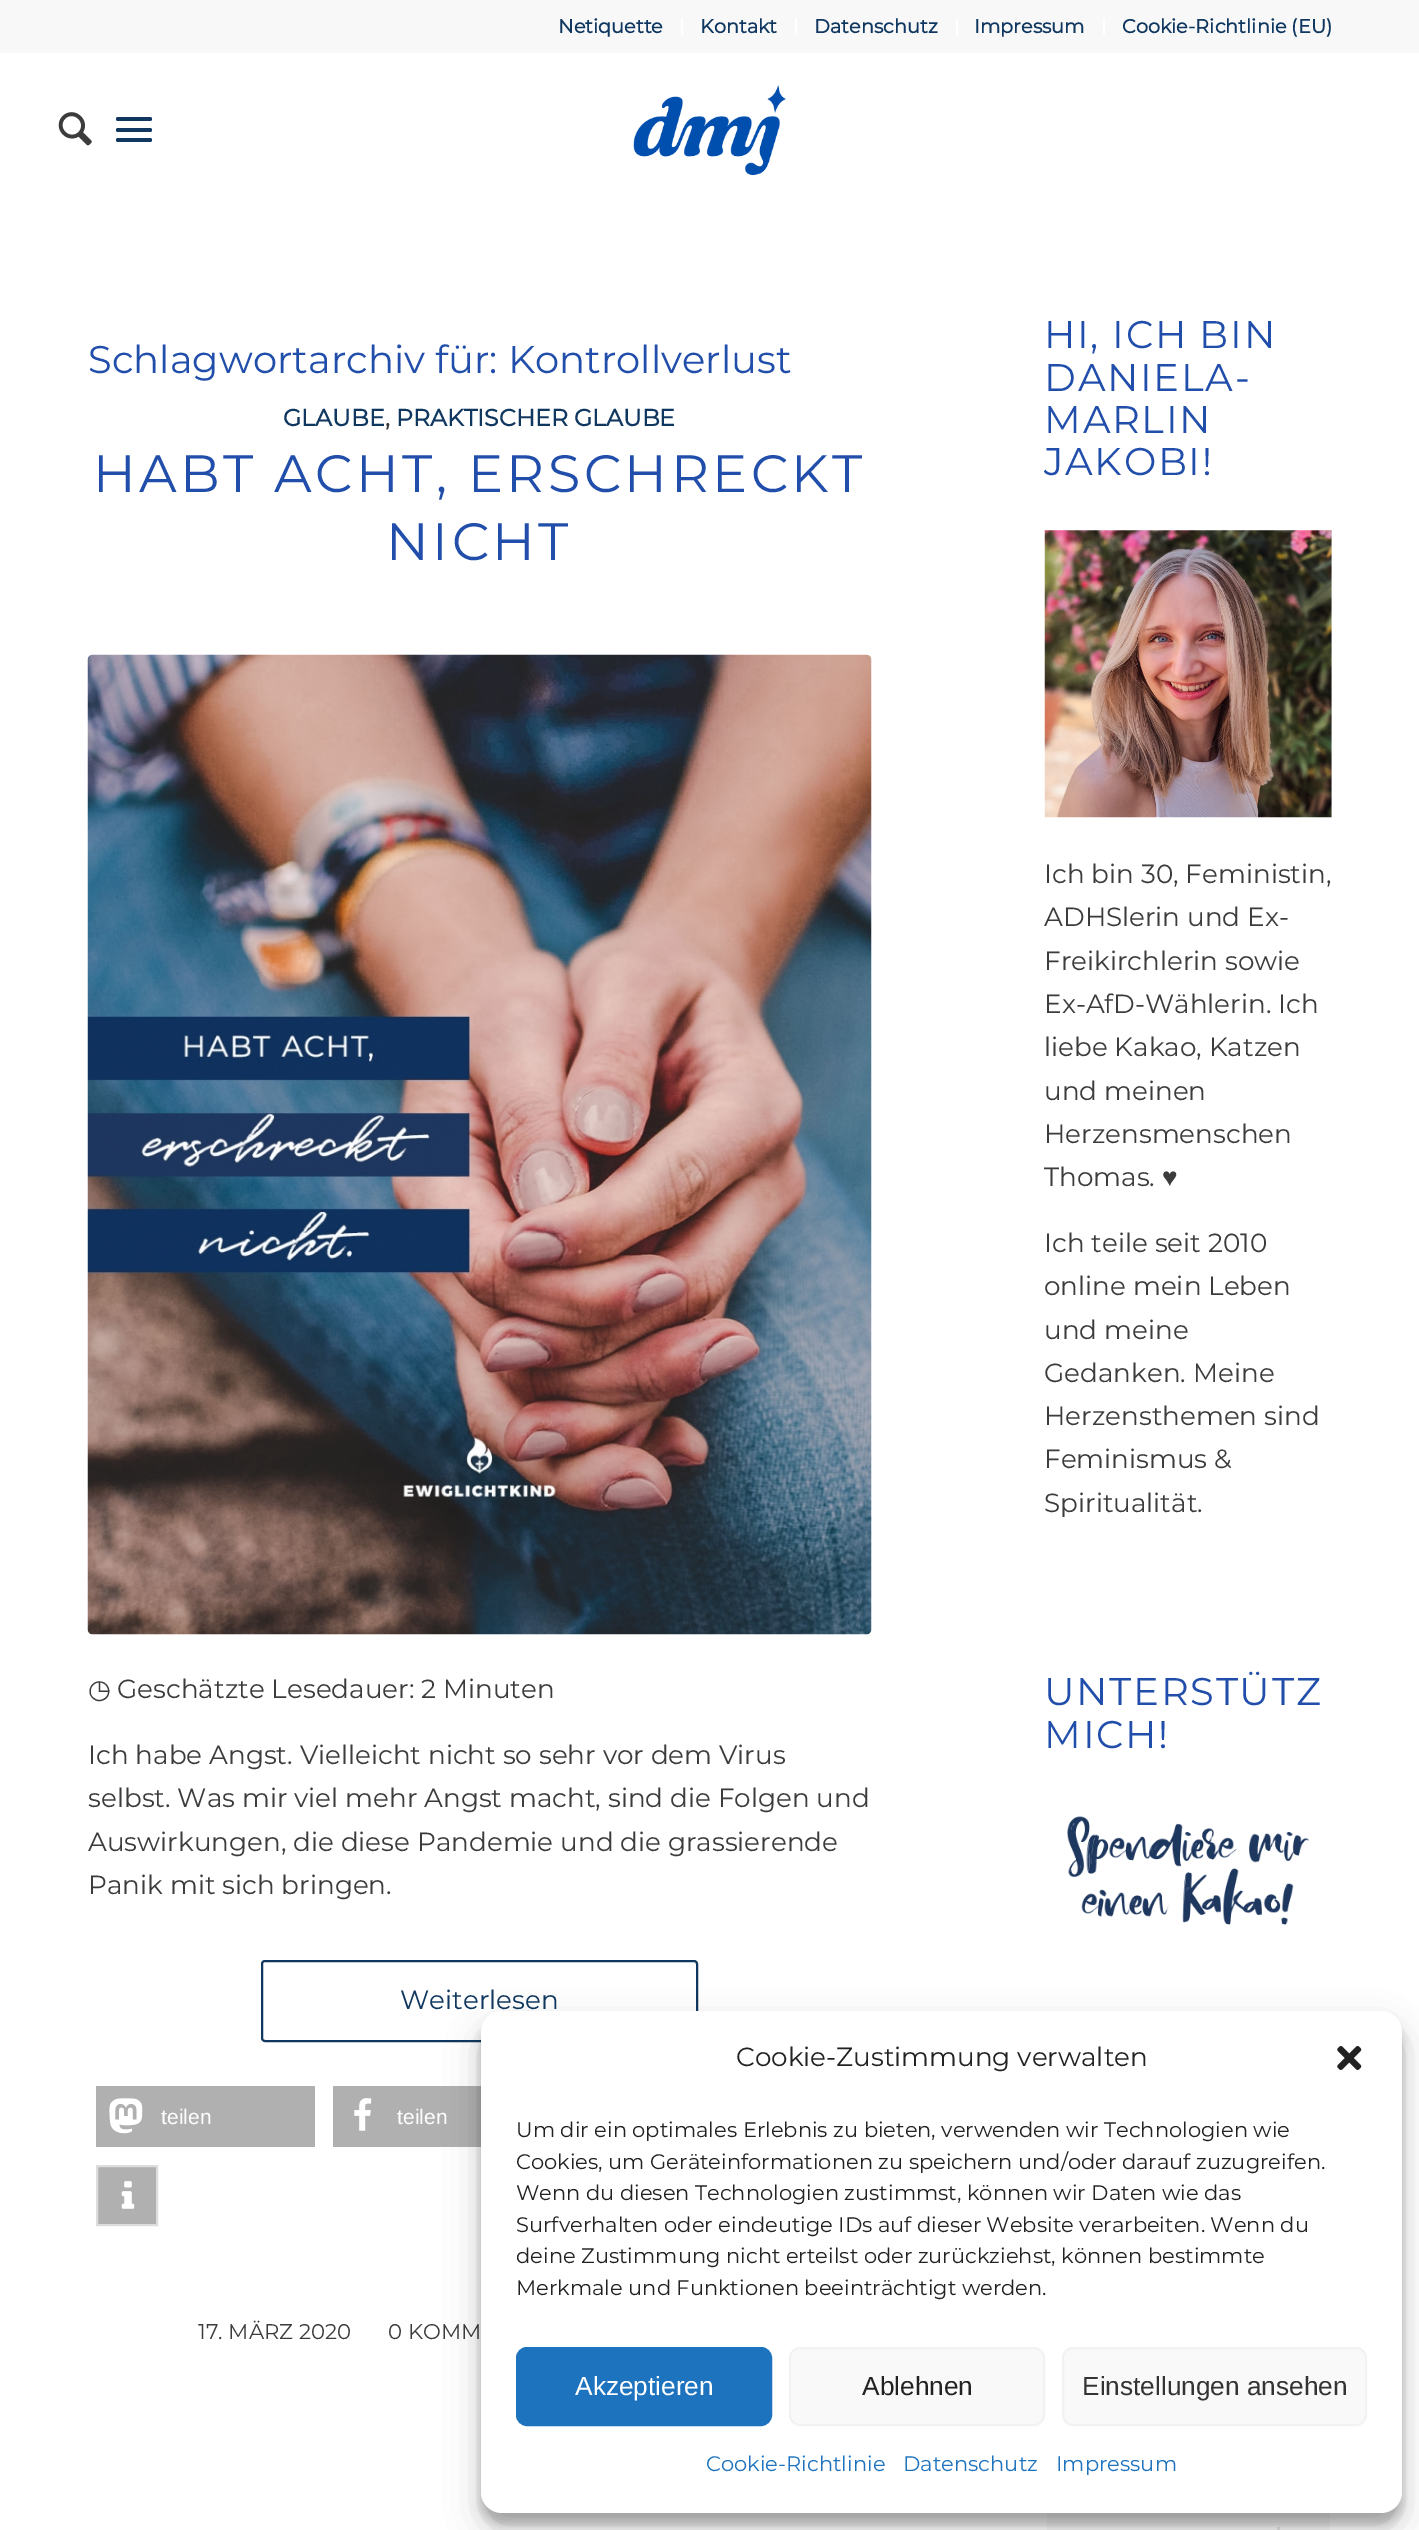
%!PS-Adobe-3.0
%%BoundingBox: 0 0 1419 2530
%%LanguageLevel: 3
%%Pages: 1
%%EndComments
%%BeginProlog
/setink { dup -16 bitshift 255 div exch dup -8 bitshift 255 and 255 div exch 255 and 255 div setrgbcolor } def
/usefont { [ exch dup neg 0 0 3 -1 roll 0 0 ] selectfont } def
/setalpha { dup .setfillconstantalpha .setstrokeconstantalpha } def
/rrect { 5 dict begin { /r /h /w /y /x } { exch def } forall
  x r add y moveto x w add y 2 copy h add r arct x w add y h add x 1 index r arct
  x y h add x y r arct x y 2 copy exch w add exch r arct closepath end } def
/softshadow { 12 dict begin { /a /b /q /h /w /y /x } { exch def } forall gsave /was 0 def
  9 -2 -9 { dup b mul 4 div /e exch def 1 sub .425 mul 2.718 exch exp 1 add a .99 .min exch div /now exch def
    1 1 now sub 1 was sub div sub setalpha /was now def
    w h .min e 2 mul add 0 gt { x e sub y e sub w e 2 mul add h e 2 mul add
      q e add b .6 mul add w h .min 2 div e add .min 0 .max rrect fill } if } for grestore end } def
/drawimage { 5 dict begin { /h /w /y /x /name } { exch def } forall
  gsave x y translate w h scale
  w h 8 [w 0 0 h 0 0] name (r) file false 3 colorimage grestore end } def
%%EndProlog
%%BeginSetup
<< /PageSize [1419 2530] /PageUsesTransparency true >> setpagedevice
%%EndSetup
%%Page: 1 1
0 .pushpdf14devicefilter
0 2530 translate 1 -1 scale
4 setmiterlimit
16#FFFFFF setink
0 0 1419 2530 rectfill
16#F8F8F8 setink
0 0 1419 53 rectfill
16#FFFFFF setink
681 18 2 17 rectfill
/Montserrat-Bold 19.25 usefont
16#0F375F setink
558 33 moveto (Netiquette) show
16#FFFFFF setink
795 18 2 17 rectfill
16#0F375F setink
700 33 moveto (Kontakt) show
16#FFFFFF setink
956 18 2 17 rectfill
16#0F375F setink
814 33 moveto (Datenschutz) show
16#FFFFFF setink
1103 18 2 17 rectfill
16#0F375F setink
974 33 moveto (Impressum) show
1122 33 moveto (Cookie-Richtlinie \(EU\)) show
(img1.raw) 58 112 34 34 drawimage
116 128 36 4 2 rrect fill
116 117 36 4 2 rrect fill
116 138 36 4 2 rrect fill
(img2.raw) 633 85 153 90 drawimage
/Montserrat-Thin 38.5 usefont
16#214EAA setink
88 373 moveto (Schlagwortarchiv für: Kontrollverlust) show
/Montserrat-Bold 23.6 usefont
16#0F375F setink
283 426 moveto (GLAUBE) show
16#3C3C3C setink
385 426 moveto (,) show
16#0F375F setink
396 426 moveto (PRAKTISCHER GLAUBE) show
/Montserrat-Thin 52.5 usefont
16#214EAA setink
93 492 moveto 3.5 0 (HABT ACHT, ERSCHRECKT) ashow
386 560 moveto 3.5 0 (NICHT) ashow
(img3.raw) 87 654 785 981 drawimage
/DejaVuSans-Regular 26.25 usefont
16#3C3C3C setink
88 1698 moveto (◷) show
/Montserrat-Thin 26.25 usefont
[
    [(Geschätzte Lesedauer: 2 Minuten) 117 1698]
    [(Ich habe Angst. Vielleicht nicht so sehr vor dem Virus) 88 1764]
    [(selbst. Was mir viel mehr Angst macht, sind die Folgen und) 88 1807]
    [(Auswirkungen, die diese Pandemie und die grassierende) 88 1851]
    [(Panik mit sich bringen.) 88 1894]
] { aload pop moveto show } forall
16#0F375F setink
2 setlinewidth
262 1961 435 80 3 rrect stroke
400 2009 moveto (Weiterlesen) show
16#B0B0B0 setink
96 2086 219 61 rectfill
(img4.raw) 109 2098 34 36 drawimage
/LiberationSans-Regular 21 usefont
16#FFFFFF setink
161 2124 moveto (teilen) show
16#B0B0B0 setink
333 2086 148 61 rectfill
(img5.raw) 354 2098 18 33 drawimage
16#FFFFFF setink
397 2124 moveto (teilen) show
16#B0B0B0 setink
97 2166 moveto 157 2166 lineto 157 2225 lineto 97 2225 lineto closepath gsave fill grestore
16#DDDDDD setink
stroke
(img6.raw) 121 2181 14 28 drawimage
/Montserrat-Thin 21.25 usefont
16#3C3C3C setink
198 2339 moveto (17. MÄRZ 2020) show
388 2339 moveto (0 KOMM) show
/Montserrat-Thin 38.5 usefont
16#214EAA setink
1044 348 moveto 1.75 0 (HI, ICH BIN) ashow
1044 391 moveto 1.75 0 (DANIELA-) ashow
1044 433 moveto 1.75 0 (MARLIN) ashow
1044 475 moveto 1.75 0 (JAKOBI!) ashow
(img7.raw) 1044 530 288 288 drawimage
/Montserrat-Thin 26.25 usefont
16#3C3C3C setink
[
    [(Ich bin 30, Feministin,) 1044 883]
    [(ADHSlerin und Ex-) 1044 926]
    [(Freikirchlerin sowie) 1044 970]
    [(Ex-AfD-Wählerin. Ich) 1044 1013]
    [(liebe Kakao, Katzen) 1044 1056]
    [(und meinen) 1044 1100]
    [(Herzensmenschen) 1044 1143]
    [(Thomas.) 1044 1186]
] { aload pop moveto show } forall
/LiberationSans-Regular 26.25 usefont
1162 1186 moveto (♥) show
/Montserrat-Thin 26.25 usefont
[
    [(Ich teile seit 2010) 1044 1252]
    [(online mein Leben) 1044 1295]
    [(und meine) 1044 1339]
    [(Gedanken. Meine) 1044 1382]
    [(Herzensthemen sind) 1044 1425]
    [(Feminismus &) 1044 1468]
    [(Spiritualität.) 1044 1512]
] { aload pop moveto show } forall
/Montserrat-Thin 38.5 usefont
16#214EAA setink
1044 1705 moveto 1.75 0 (UNTERSTÜTZ) ashow
1044 1748 moveto 1.75 0 (MICH!) ashow
(img8.raw) 1067 1816 242 109 drawimage
16#F8F8F8 setink
1047 2513 283 17 rectfill
16#E2E2E2 setink
1277 2527 3 3 rectfill
16#000000 setink
481 2021 921 503 21 5 0.23 softshadow
481 2028 921 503 21 17.5 0.19 softshadow
16#FFFFFF setink
481 2011 921 502 21 rrect fill
/Montserrat-Thin 26.25 usefont
16#222222 setink
736 2066 moveto (Cookie-Zustimmung verwalten) show
(img9.raw) 1337 2046 25 24 drawimage
/Montserrat-Thin 21 usefont
[
    [(Um dir ein optimales Erlebnis zu bieten, verwenden wir Technologien wie) 516 2137]
    [(Cookies, um Geräteinformationen zu speichern und/oder darauf zuzugreifen.) 516 2169]
    [(Wenn du diesen Technologien zustimmst, können wir Daten wie das) 516 2200]
    [(Surfverhalten oder eindeutige IDs auf dieser Website verarbeiten. Wenn du) 516 2232]
    [(deine Zustimmung nicht erteilst oder zurückziehst, können bestimmte) 516 2263]
    [(Merkmale und Funktionen beeinträchtigt werden.) 516 2295]
] { aload pop moveto show } forall
16#1E73BE setink
517 2348 254 77 10 rrect gsave fill grestore
stroke
/LiberationSans-Regular 26.25 usefont
16#FFFFFF setink
575 2395 moveto (Akzeptieren) show
16#F9F9F9 setink
790 2348 254 77 10 rrect gsave fill grestore
16#F2F2F2 setink
stroke
16#222222 setink
862 2395 moveto (Ablehnen) show
16#F9F9F9 setink
1063 2348 303 77 10 rrect gsave fill grestore
16#F2F2F2 setink
stroke
16#333333 setink
1082 2395 moveto (Einstellungen ansehen) show
/Montserrat-Thin 21 usefont
16#1E73BE setink
[
    [(Cookie-Richtlinie) 706 2471]
    [(Datenschutz) 903 2471]
    [(Impressum) 1056 2471]
] { aload pop moveto show } forall
.poppdf14devicefilter showpage
%%EOF
